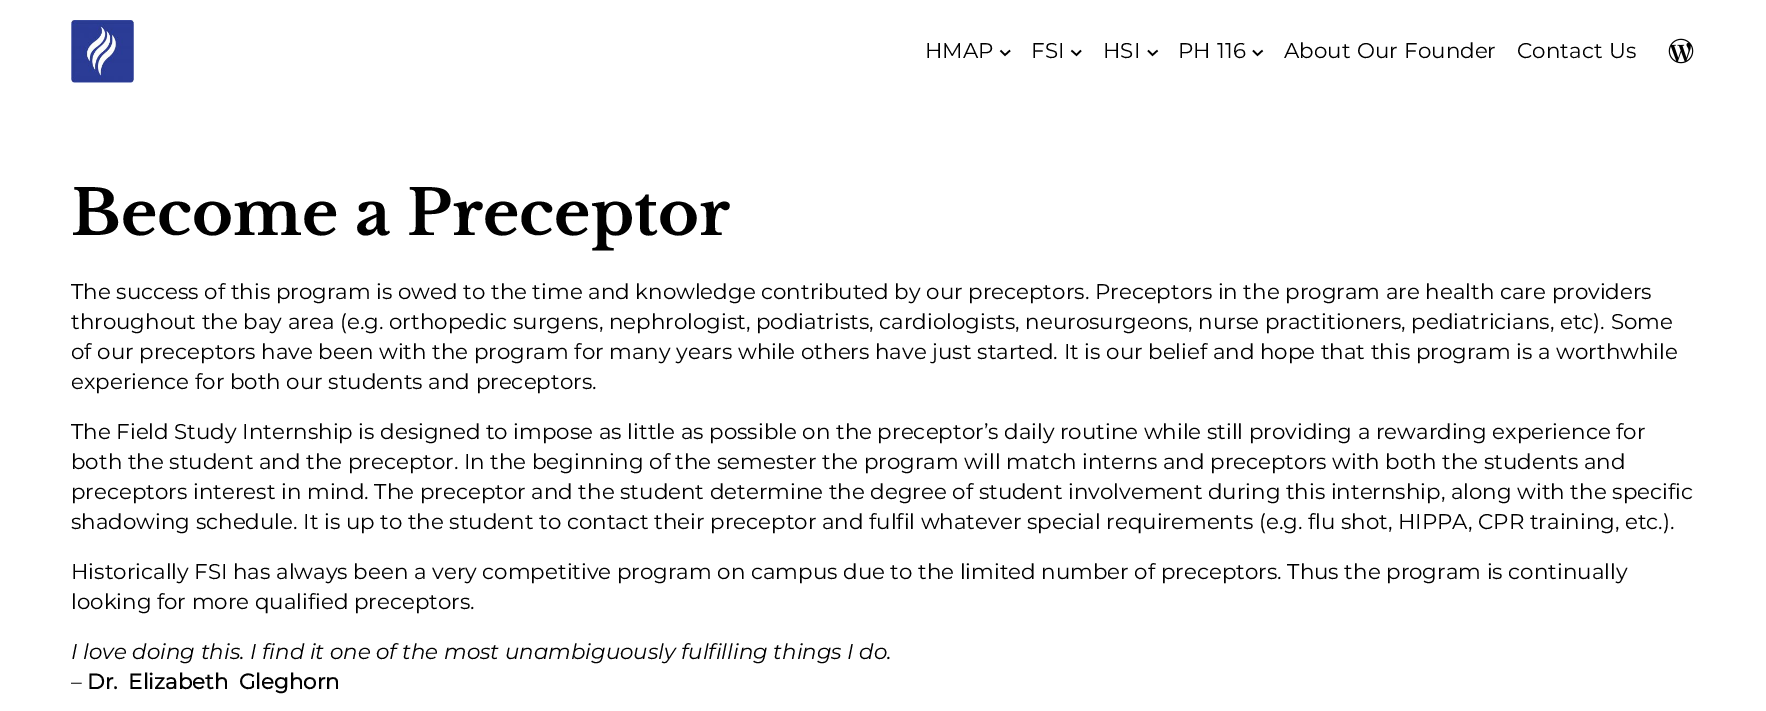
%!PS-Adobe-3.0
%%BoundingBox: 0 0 1766 711
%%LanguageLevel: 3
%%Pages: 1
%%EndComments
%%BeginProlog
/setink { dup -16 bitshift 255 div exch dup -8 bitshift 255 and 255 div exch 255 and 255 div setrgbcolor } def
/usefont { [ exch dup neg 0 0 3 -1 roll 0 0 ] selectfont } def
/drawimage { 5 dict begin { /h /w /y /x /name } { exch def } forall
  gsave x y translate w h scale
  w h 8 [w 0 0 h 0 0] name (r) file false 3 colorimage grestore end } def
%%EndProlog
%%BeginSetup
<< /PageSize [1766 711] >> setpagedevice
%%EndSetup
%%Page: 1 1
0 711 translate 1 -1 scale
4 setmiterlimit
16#FFFFFF setink
0 0 1766 711 rectfill
(img1.raw) 71 20 63 63 drawimage
/Montserrat-Regular 21.38 usefont
16#000000 setink
925 58 moveto (HMAP) show
1.6 setlinewidth
1000.5 50.5 moveto 1005 55 lineto 1010 50.5 lineto stroke
1031 58 moveto (FSI) show
1071.5 50.5 moveto 1076.5 55 lineto 1081 50.5 lineto stroke
1103 58 moveto (HSI) show
1148 50.5 moveto 1152.5 55 lineto 1157.5 50.5 lineto stroke
1178 58 moveto 1 0 32 (PH 116) widthshow
1253 50.5 moveto 1257.5 55 lineto 1262.5 50.5 lineto stroke
1284 58 moveto 1 0 32 (About Our Founder) widthshow
1517 58 moveto 1 0 32 (Contact Us) widthshow
(img2.raw) 1668 38 26 26 drawimage
/LibreBaskerville-Bold 62.25 usefont
71 235 moveto (Become a Preceptor) show
/Montserrat-Regular 21.38 usefont
[
    [(The success of this program is owed to the time and knowledge contributed by our preceptors. Preceptors in the program are health care providers) 71 299]
    [(throughout the bay area \(e.g. orthopedic surgens, nephrologist, podiatrists, cardiologists, neurosurgeons, nurse practitioners, pediatricians, etc\). Some) 71 329]
    [(of our preceptors have been with the program for many years while others have just started. It is our belief and hope that this program is a worthwhile) 71 359]
    [(experience for both our students and preceptors.) 71 389]
    [(The Field Study Internship is designed to impose as little as possible on the preceptor’s daily routine while still providing a rewarding experience for) 71 439]
    [(both the student and the preceptor. In the beginning of the semester the program will match interns and preceptors with both the students and) 71 469]
    [(preceptors interest in mind. The preceptor and the student determine the degree of student involvement during this internship, along with the specific) 71 499]
    [(shadowing schedule. It is up to the student to contact their preceptor and fulfil whatever special requirements \(e.g. flu shot, HIPPA, CPR training, etc.\).) 71 529]
    [(Historically FSI has always been a very competitive program on campus due to the limited number of preceptors. Thus the program is continually) 71 579]
    [(looking for more qualified preceptors.) 71 609]
] { aload pop moveto show } forall
/Montserrat-Italic 21.38 usefont
71 659 moveto (I love doing this. I find it one of the most unambiguously fulfilling things I do.) show
/Montserrat-Regular 21.38 usefont
71 689 moveto (–) show
/Montserrat-Bold 21.38 usefont
87 689 moveto 5 0 32 (Dr. Elizabeth Gleghorn) widthshow
showpage
%%EOF
